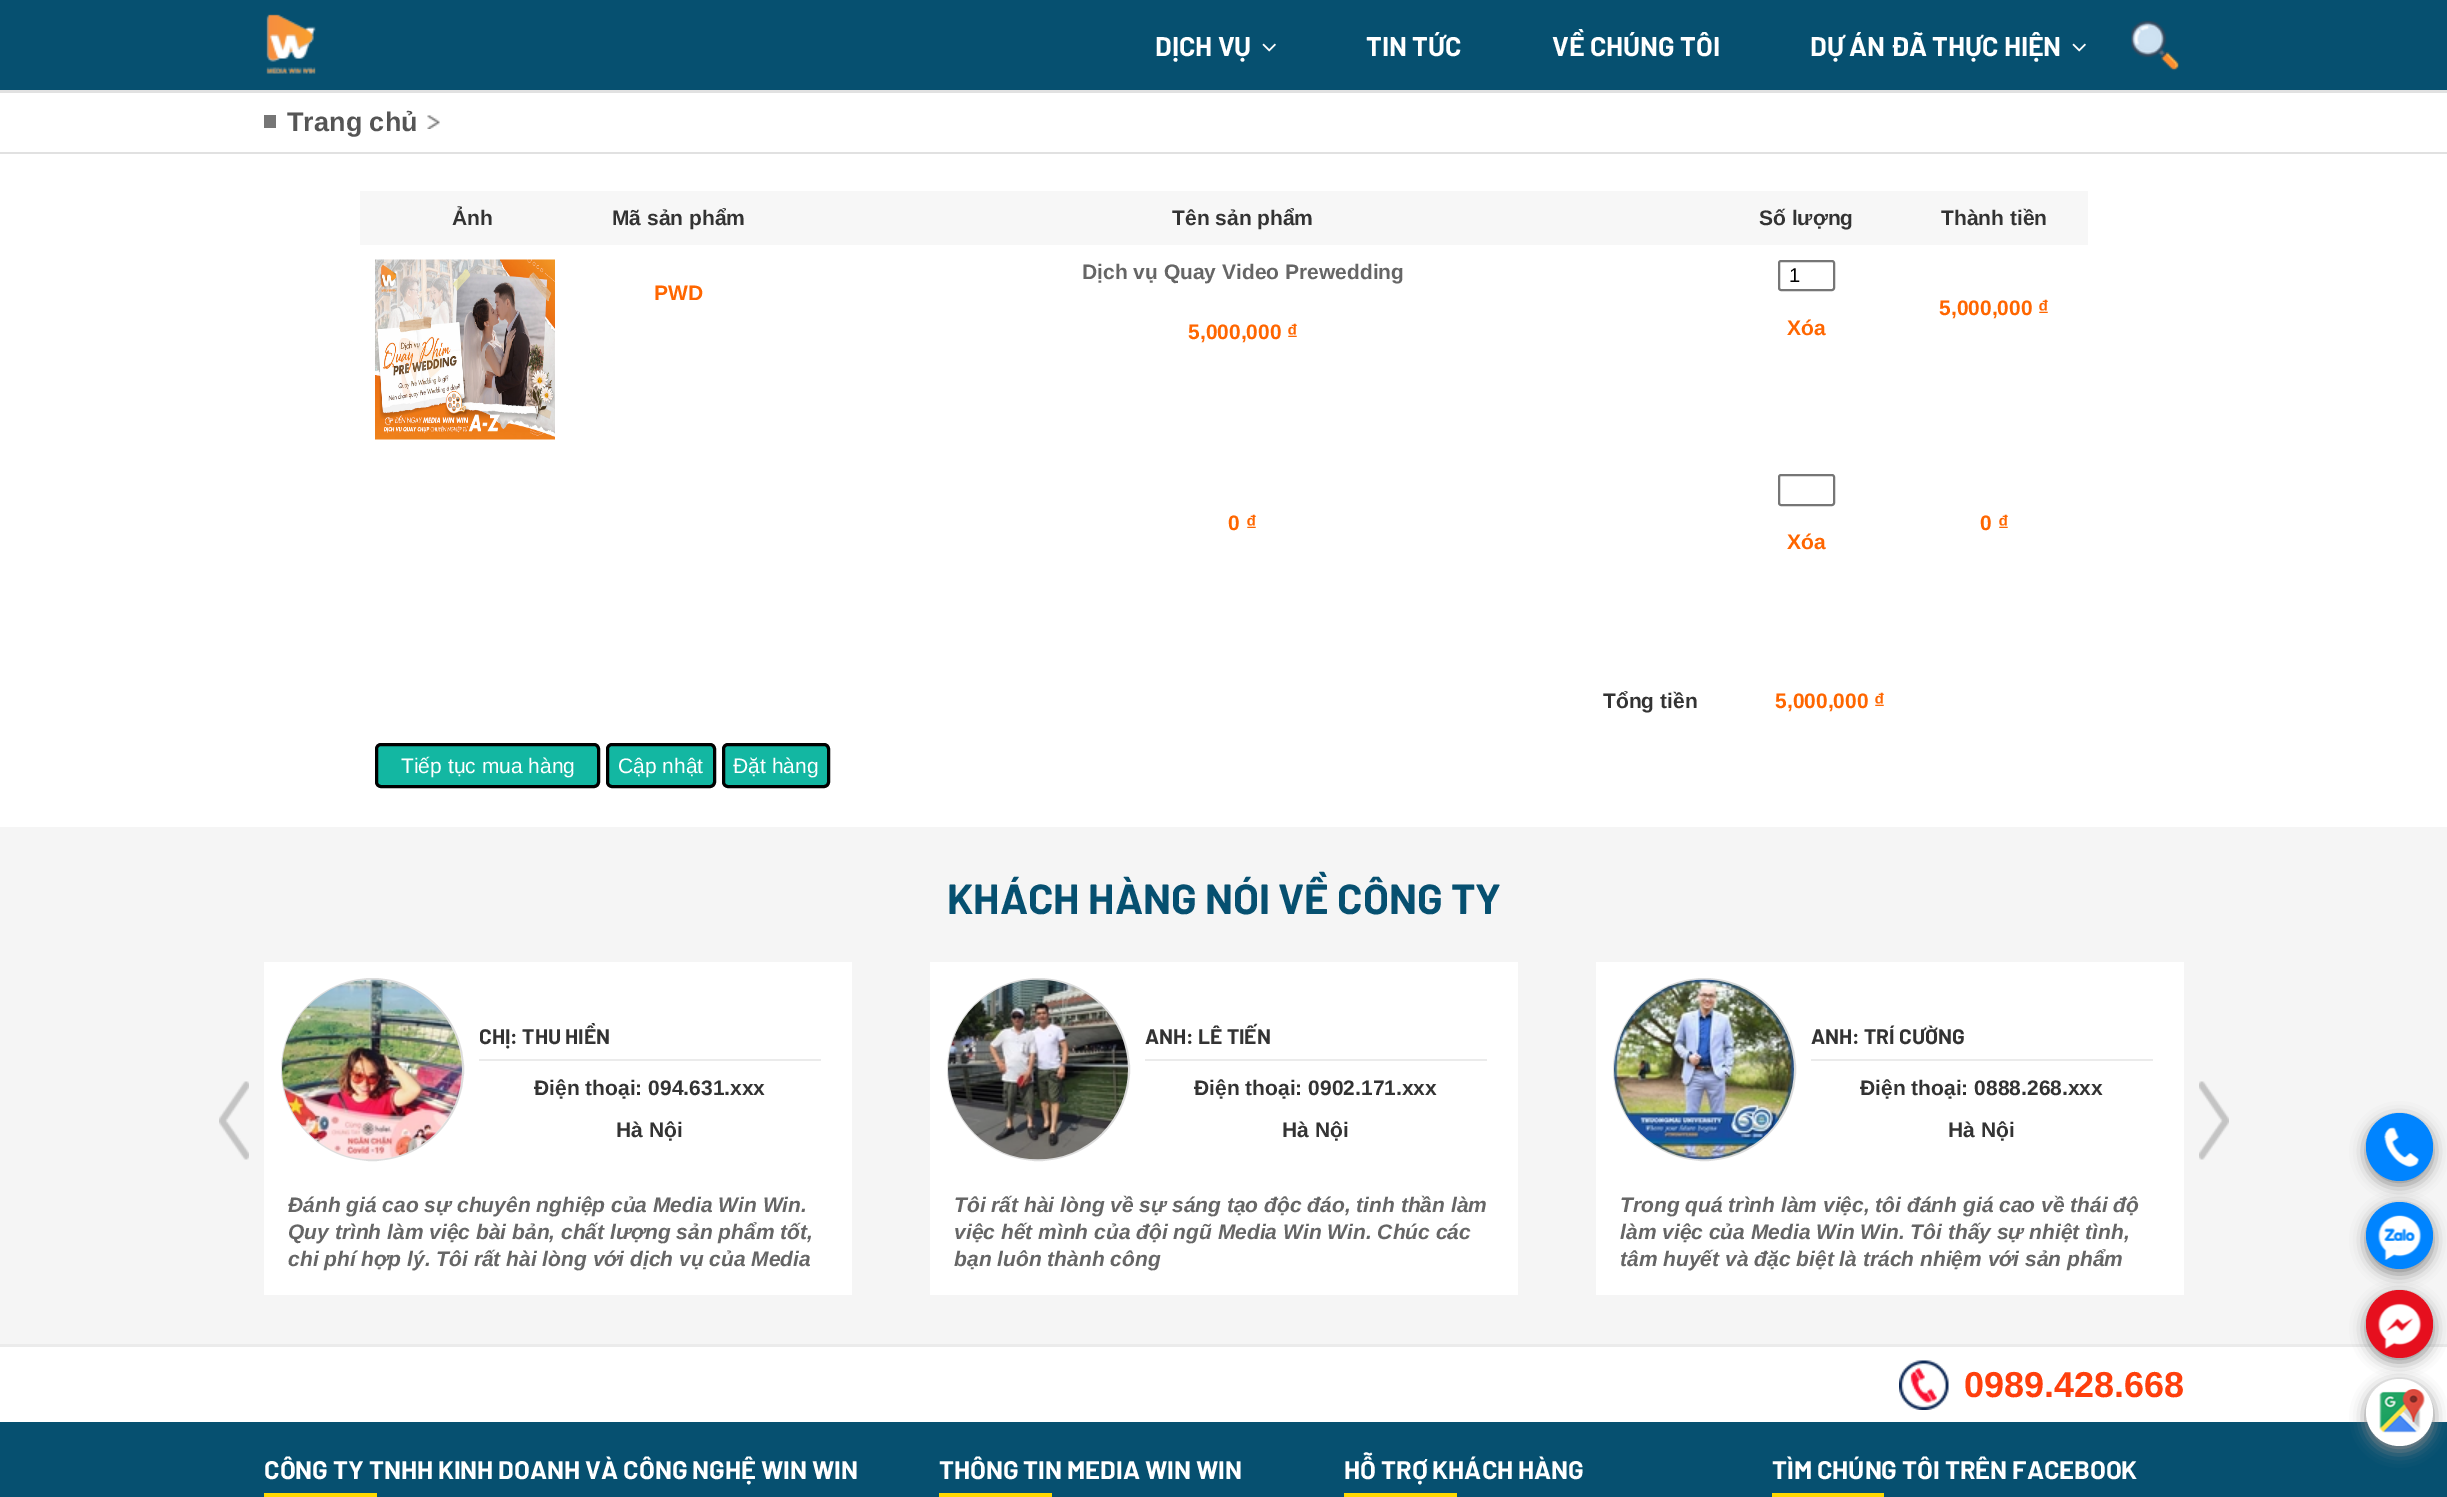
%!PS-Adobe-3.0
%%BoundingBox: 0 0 2447 1497
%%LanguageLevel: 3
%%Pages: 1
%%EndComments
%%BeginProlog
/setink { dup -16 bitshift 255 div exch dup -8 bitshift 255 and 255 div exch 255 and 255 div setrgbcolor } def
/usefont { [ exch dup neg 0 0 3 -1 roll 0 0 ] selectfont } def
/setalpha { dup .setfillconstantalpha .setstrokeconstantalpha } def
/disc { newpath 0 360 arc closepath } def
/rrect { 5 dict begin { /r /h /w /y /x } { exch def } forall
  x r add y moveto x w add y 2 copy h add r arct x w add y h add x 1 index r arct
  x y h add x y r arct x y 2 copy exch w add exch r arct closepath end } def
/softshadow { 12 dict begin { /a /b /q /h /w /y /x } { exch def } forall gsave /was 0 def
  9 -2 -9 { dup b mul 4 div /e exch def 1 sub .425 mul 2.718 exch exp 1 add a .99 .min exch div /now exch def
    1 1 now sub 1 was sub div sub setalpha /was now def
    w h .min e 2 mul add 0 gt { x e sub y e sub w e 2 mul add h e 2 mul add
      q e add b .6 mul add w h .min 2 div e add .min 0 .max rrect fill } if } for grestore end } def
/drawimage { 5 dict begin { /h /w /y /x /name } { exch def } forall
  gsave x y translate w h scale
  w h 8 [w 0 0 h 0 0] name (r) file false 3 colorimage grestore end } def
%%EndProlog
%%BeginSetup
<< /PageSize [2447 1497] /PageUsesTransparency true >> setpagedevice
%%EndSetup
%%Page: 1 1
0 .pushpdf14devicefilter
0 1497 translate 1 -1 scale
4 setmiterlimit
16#FFFFFF setink
0 0 2447 1497 rectfill
16#065070 setink
0 0 2447 90 rectfill
16#E1E1E1 setink
0 90 2447 3 rectfill
(img1.raw) 266 14 50 60 drawimage
/Barlow-Bold 27 usefont
16#FFFFFF setink
1155 56 moveto (DỊCH VỤ) show
(img2.raw) 1262 43 14 9 drawimage
[
    [(TIN TỨC) 1366 56]
    [(VỀ CHÚNG TÔI) 1552 56]
    [(DỰ ÁN ĐÃ THỰC HIỆN) 1810 56]
] { aload pop moveto show } forall
(img2.raw) 2072 43 14 9 drawimage
(img3.raw) 2131 20 48 51 drawimage
16#E1E1E1 setink
0 152 2447 2 rectfill
16#767676 setink
264 115 12 13 rectfill
(img4.raw) 427 115 13 14 drawimage
/LiberationSans-Bold 27 usefont
16#555555 setink
287 131 moveto (Trang chủ) show
16#F7F7F7 setink
360 191 1728 54 rectfill
/LiberationSans-Bold 21 usefont
16#333333 setink
[
    [(Ảnh) 452 225]
    [(Mã sản phẩm) 612 225]
    [(Tên sản phẩm) 1172 225]
    [(Số lượng) 1759 225]
    [(Thành tiền) 1941 225]
] { aload pop moveto show } forall
(img5.raw) 375 259 180 181 drawimage
16#FF6600 setink
654 300 moveto (PWD) show
16#666666 setink
1082 279 moveto (Dịch vụ Quay Video Prewedding) show
16#FF6600 setink
1188 339 moveto (5,000,000 ₫) show
16#767676 setink
2 setlinewidth
1779 261 55 29 2 rrect stroke
/LiberationSans-Regular 20 usefont
16#000000 setink
1789 282 moveto (1) show
/LiberationSans-Bold 21 usefont
16#FF6600 setink
[
    [(Xóa) 1787 335]
    [(5,000,000 ₫) 1939 315]
    [(0 ₫) 1228 530]
    [(0 ₫) 1980 530]
] { aload pop moveto show } forall
16#767676 setink
1779 475 55 30 2 rrect stroke
16#FF6600 setink
1787 549 moveto (Xóa) show
16#333333 setink
1603 708 moveto (Tổng tiền) show
16#FF6600 setink
1775 708 moveto (5,000,000 ₫) show
16#13B7A2 setink
376.5 744.5 222 42 4.5 rrect gsave fill grestore
16#000000 setink
3 setlinewidth
stroke
/LiberationSans-Regular 21 usefont
16#FFFFFF setink
401 773 moveto (Tiếp tục mua hàng) show
16#13B7A2 setink
607.5 744.5 107 42 4.5 rrect gsave fill grestore
16#000000 setink
stroke
16#FFFFFF setink
618 773 moveto (Cập nhật) show
16#13B7A2 setink
723.5 744.5 105 42 4.5 rrect gsave fill grestore
16#000000 setink
stroke
16#FFFFFF setink
733 773 moveto (Đặt hàng) show
16#F5F5F5 setink
0 827 2447 517 rectfill
/Barlow-Bold 42 usefont
16#065070 setink
947 914 moveto (KHÁCH HÀNG NÓI VỀ CÔNG TY) show
(img6.raw) 219 1081 30 79 drawimage
16#FFFFFF setink
264 962 588 333 rectfill
16#DDDDDD setink
2 setlinewidth
372.5 1069.5 90.5 disc stroke
(img7.raw) 282 979 180 181 drawimage
16#EBEBEB setink
479 1059 342 2 rectfill
/Barlow-Bold 21 usefont
16#333333 setink
479 1044 moveto (CHỊ: THU HIỀN) show
/LiberationSans-Bold 21 usefont
534 1095 moveto (Điện thoại: 094.631.xxx) show
616 1137 moveto (Hà Nội) show
/LiberationSans-BoldItalic 21 usefont
16#666666 setink
[
    [(Đánh giá cao sự chuyên nghiệp của Media Win Win.) 288 1212]
    [(Quy trình làm việc bài bản, chất lượng sản phẩm tốt,) 288 1239]
    [(chi phí hợp lý. Tôi rất hài lòng với dịch vụ của Media) 288 1266]
] { aload pop moveto show } forall
16#FFFFFF setink
930 962 588 333 rectfill
16#DDDDDD setink
1038.5 1069.5 90.5 disc stroke
(img8.raw) 948 979 180 181 drawimage
16#EBEBEB setink
1145 1059 342 2 rectfill
/Barlow-Bold 21 usefont
16#333333 setink
1145 1044 moveto (ANH: LÊ TIẾN) show
/LiberationSans-Bold 21 usefont
1194 1095 moveto (Điện thoại: 0902.171.xxx) show
1282 1137 moveto (Hà Nội) show
/LiberationSans-BoldItalic 21 usefont
16#666666 setink
[
    [(Tôi rất hài lòng về sự sáng tạo độc đáo, tinh thần làm) 954 1212]
    [(việc hết mình của đội ngũ Media Win Win. Chúc các) 954 1239]
    [(bạn luôn thành công) 954 1266]
] { aload pop moveto show } forall
16#FFFFFF setink
1596 962 588 333 rectfill
16#DDDDDD setink
1704.5 1069.5 90.5 disc stroke
(img9.raw) 1614 979 180 181 drawimage
16#EBEBEB setink
1811 1059 342 2 rectfill
/Barlow-Bold 21 usefont
16#333333 setink
1811 1044 moveto (ANH: TRÍ CƯỜNG) show
/LiberationSans-Bold 21 usefont
1860 1095 moveto (Điện thoại: 0888.268.xxx) show
1948 1137 moveto (Hà Nội) show
/LiberationSans-BoldItalic 21 usefont
16#666666 setink
[
    [(Trong quá trình làm việc, tôi đánh giá cao về thái độ) 1620 1212]
    [(làm việc của Media Win Win. Tôi thấy sự nhiệt tình,) 1620 1239]
    [(tâm huyết và đặc biệt là trách nhiệm với sản phẩm) 1620 1266]
] { aload pop moveto show } forall
(img10.raw) 2199 1081 30 79 drawimage
16#888888 setink
2366 1118 67 67 33.5 7.5 1 softshadow
16#0084FF setink
2366 1113 67 68 33.5 rrect fill
(img11.raw) 2384 1127 35 40 drawimage
16#888888 setink
2366 1206 67 68 33.5 7.5 1 softshadow
16#0084FF setink
2399.5 1235.5 33.5 disc fill
(img12.raw) 2378 1215 44 45 drawimage
16#EBEBEB setink
0 1344 2447 3 rectfill
16#888888 setink
2366 1295 67 67 33.5 7.5 1 softshadow
16#E60F1E setink
2366 1290 67 68 33.5 rrect fill
(img13.raw) 2378 1303 44 46 drawimage
16#065070 setink
0 1422 2447 75 rectfill
16#888888 setink
2366 1383 67 68 33.5 7.5 1 softshadow
16#FFFFFF setink
2399.5 1412.5 33.5 disc fill
(img14.raw) 2379 1389 46 44 drawimage
(img15.raw) 1899 1360 50 50 drawimage
/LiberationSans-Bold 36 usefont
16#FE3F0C setink
1964 1397 moveto (0989.428.668) show
/Barlow-Bold 25.5 usefont
16#FFFFFF setink
264 1479 moveto (CÔNG TY TNHH KINH DOANH VÀ CÔNG NGHỆ WIN WIN) show
16#FFD800 setink
264 1493 113 4 rectfill
16#FFFFFF setink
939 1479 moveto (THÔNG TIN MEDIA WIN WIN) show
16#FFD800 setink
939 1493 113 4 rectfill
16#FFFFFF setink
1344 1479 moveto (HỖ TRỢ KHÁCH HÀNG) show
16#FFD800 setink
1344 1493 113 4 rectfill
16#FFFFFF setink
1772 1479 moveto (TÌM CHÚNG TÔI TRÊN FACEBOOK) show
16#FFD800 setink
1772 1493 112 4 rectfill
.poppdf14devicefilter showpage
%%EOF
